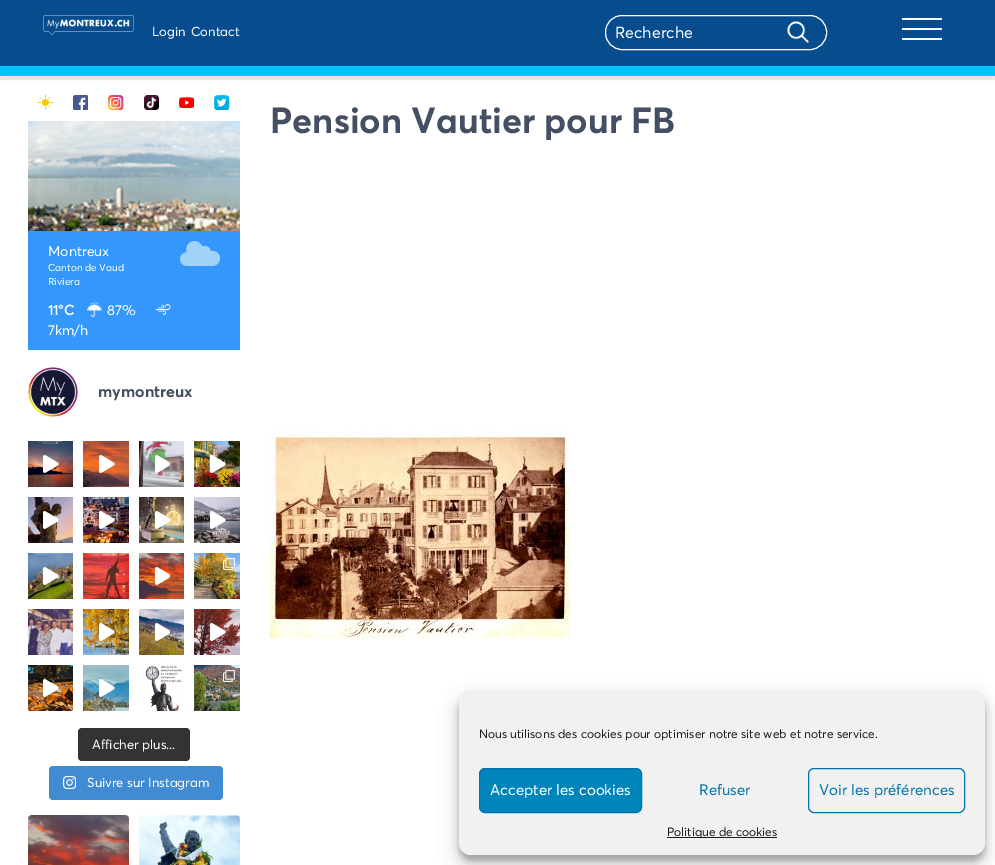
%!PS-Adobe-3.0
%%BoundingBox: 0 0 995 865
%%LanguageLevel: 3
%%Pages: 1
%%EndComments
%%BeginProlog
/setink { dup -16 bitshift 255 div exch dup -8 bitshift 255 and 255 div exch 255 and 255 div setrgbcolor } def
/usefont { [ exch dup neg 0 0 3 -1 roll 0 0 ] selectfont } def
/setalpha { dup .setfillconstantalpha .setstrokeconstantalpha } def
/rrect { 5 dict begin { /r /h /w /y /x } { exch def } forall
  x r add y moveto x w add y 2 copy h add r arct x w add y h add x 1 index r arct
  x y h add x y r arct x y 2 copy exch w add exch r arct closepath end } def
/softshadow { 12 dict begin { /a /b /q /h /w /y /x } { exch def } forall gsave /was 0 def
  9 -2 -9 { dup b mul 4 div /e exch def 1 sub .425 mul 2.718 exch exp 1 add a .99 .min exch div /now exch def
    1 1 now sub 1 was sub div sub setalpha /was now def
    w h .min e 2 mul add 0 gt { x e sub y e sub w e 2 mul add h e 2 mul add
      q e add b .6 mul add w h .min 2 div e add .min 0 .max rrect fill } if } for grestore end } def
/drawimage { 5 dict begin { /h /w /y /x /name } { exch def } forall
  gsave x y translate w h scale
  w h 8 [w 0 0 h 0 0] name (r) file false 3 colorimage grestore end } def
%%EndProlog
%%BeginSetup
<< /PageSize [995 865] /PageUsesTransparency true >> setpagedevice
%%EndSetup
%%Page: 1 1
0 .pushpdf14devicefilter
0 865 translate 1 -1 scale
4 setmiterlimit
16#FFFFFF setink
0 0 995 865 rectfill
16#000000 setink
0 4 995 76 0 0.5 0.1 softshadow
16#074D8E setink
0 0 995 66 rectfill
(img1.raw) 43 15 91 20 drawimage
/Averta-Regular 13 usefont
16#FFFFFF setink
152 36 moveto (Login) show
191 36 moveto (Contact) show
605.5 15.5 221 34 16.5 rrect stroke
/Averta-Regular 16 usefont
615 38 moveto (Recherche) show
(img2.raw) 787 21 22 22 drawimage
902 18 40 2 1 rrect fill
902 28 40 2 1 rrect fill
902 38 40 2 1 rrect fill
16#00C4FF setink
0 66 995 10 rectfill
/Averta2-Bold 36 usefont
16#454F63 setink
270 133 moveto (Pension Vautier pour FB) show
(img3.raw) 270 431 300 207 drawimage
(img4.raw) 38 95 15 15 drawimage
(img5.raw) 73 95 15 15 drawimage
(img6.raw) 108 95 16 15 drawimage
(img7.raw) 144 95 15 15 drawimage
(img8.raw) 179 97 15 12 drawimage
(img9.raw) 214 95 16 15 drawimage
16#3497FC setink
28 231 212 119 rectfill
(img10.raw) 28 121 212 110 drawimage
/Averta-Regular 14 usefont
16#FFFFFF setink
48 256 moveto (Montreux) show
/Averta-Regular 10 usefont
48 271 moveto (Canton de Vaud) show
48 285 moveto (Riviera) show
(img11.raw) 180 241 40 25 drawimage
/Averta-Bold 14 usefont
48 315 moveto (11°C) show
(img12.raw) 87 302 15 15 drawimage
/Averta-Regular 14 usefont
107 315 moveto (87%) show
(img13.raw) 156 304 15 11 drawimage
48 335 moveto (7km/h) show
(img14.raw) 28 367 50 50 drawimage
/Averta2-Bold 16 usefont
16#454F63 setink
98 397 moveto (mymontreux) show
(img15.raw) 28 441 45 46 drawimage
(img16.raw) 43 455 16 18 drawimage
(img17.raw) 83 441 46 46 drawimage
(img18.raw) 99 455 16 18 drawimage
(img19.raw) 139 441 45 46 drawimage
(img20.raw) 155 455 15 18 drawimage
(img21.raw) 194 441 46 46 drawimage
(img22.raw) 210 455 16 18 drawimage
(img23.raw) 28 497 45 46 drawimage
(img24.raw) 43 511 16 18 drawimage
(img25.raw) 83 497 46 46 drawimage
(img26.raw) 99 511 16 18 drawimage
(img27.raw) 139 497 45 46 drawimage
(img28.raw) 155 511 15 18 drawimage
(img29.raw) 194 497 46 46 drawimage
(img30.raw) 210 511 16 18 drawimage
(img31.raw) 28 553 45 46 drawimage
(img32.raw) 43 567 16 18 drawimage
(img33.raw) 83 553 46 46 drawimage
(img34.raw) 139 553 45 46 drawimage
(img35.raw) 155 567 15 18 drawimage
(img36.raw) 194 553 46 46 drawimage
(img37.raw) 223 558 12 12 drawimage
(img38.raw) 28 609 45 46 drawimage
(img39.raw) 83 609 46 46 drawimage
(img40.raw) 99 623 16 18 drawimage
(img41.raw) 139 609 45 46 drawimage
(img42.raw) 155 623 15 18 drawimage
(img43.raw) 194 609 46 46 drawimage
(img44.raw) 210 623 16 18 drawimage
(img45.raw) 28 665 45 46 drawimage
(img46.raw) 43 679 16 18 drawimage
(img47.raw) 83 665 46 46 drawimage
(img48.raw) 99 679 16 18 drawimage
(img49.raw) 145 665 39 46 drawimage
(img50.raw) 194 665 46 46 drawimage
(img51.raw) 223 670 12 12 drawimage
16#333333 setink
78 728 112 33 4 rrect fill
/Averta-Regular 13 usefont
16#FFFFFF setink
92 749 moveto (Afficher plus...) show
16#408BD1 setink
49 766 174 34 4 rrect fill
(img52.raw) 63 776 13 13 drawimage
16#FFFFFF setink
87 787 moveto (Suivre sur Instagram) show
(img53.raw) 28 815 101 50 drawimage
(img54.raw) 139 815 101 50 drawimage
16#000000 setink
459 696 526 165 12 3 0.23 softshadow
459 700 526 165 12 10 0.19 softshadow
16#F1F1F1 setink
459 690 526 165 12 rrect fill
/Averta-Regular 12 usefont
16#191E23 setink
479 738 moveto (Nous utilisons des cookies pour optimiser notre site web et notre service.) show
16#0085BA setink
479.5 768.5 162 44 5.5 rrect gsave fill grestore
16#0073AA setink
stroke
/Averta-Regular 15 usefont
16#FFFFFF setink
490 795 moveto (Accepter les cookies) show
16#0073AA setink
699 795 moveto (Refuser) show
808.5 768.5 156 44 5.5 rrect stroke
819 795 moveto (Voir les préférences) show
16#191E23 setink
667 837 110 1 rectfill
/Averta-Regular 12 usefont
667 836 moveto (Politique de cookies) show
.poppdf14devicefilter showpage
%%EOF
